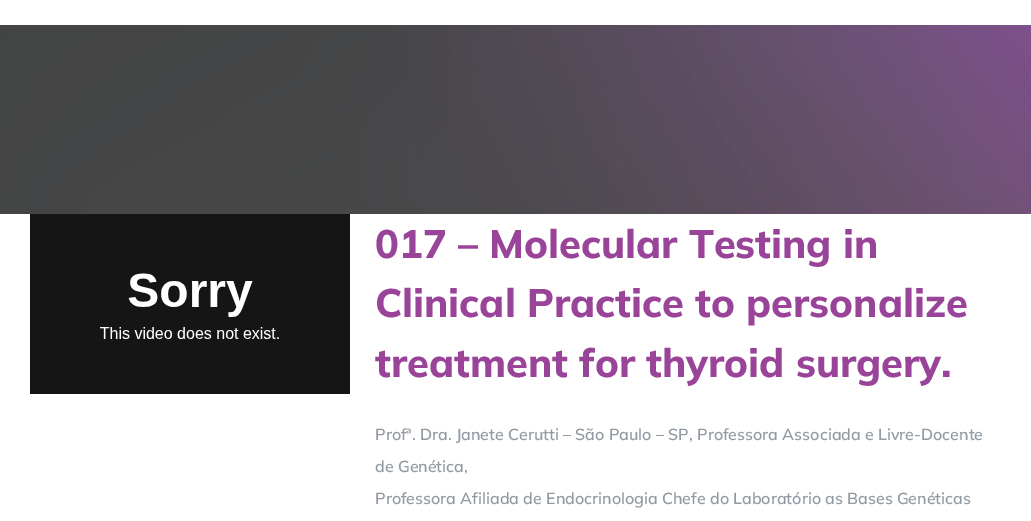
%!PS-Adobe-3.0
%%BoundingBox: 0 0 1031 521
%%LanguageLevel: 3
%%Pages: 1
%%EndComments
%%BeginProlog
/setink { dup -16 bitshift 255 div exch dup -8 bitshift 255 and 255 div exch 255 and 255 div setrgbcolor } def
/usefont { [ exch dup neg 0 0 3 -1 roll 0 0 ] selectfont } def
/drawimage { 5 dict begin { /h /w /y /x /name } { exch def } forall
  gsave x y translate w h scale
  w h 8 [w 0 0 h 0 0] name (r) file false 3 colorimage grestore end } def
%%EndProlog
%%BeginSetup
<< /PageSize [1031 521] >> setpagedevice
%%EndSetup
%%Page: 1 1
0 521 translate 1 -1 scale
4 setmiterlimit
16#FFFFFF setink
0 0 1031 521 rectfill
(img1.raw) 0 25 1031 189 drawimage
(img2.raw) 30 214 320 180 drawimage
/Mulish-ExtraBold 39.75 usefont
16#994499 setink
[
    [(017 – Molecular Testing in) 375 258]
    [(Clinical Practice to personalize) 375 317]
    [(treatment for thyroid surgery.) 375 377]
] { aload pop moveto show } forall
/Mulish-SemiBold 16 usefont
16#929AA3 setink
[
    [(Profª. Dra. Janete Cerutti – São Paulo – SP, Professora Associada e Livre-Docente) 375 440]
    [(de Genética,) 375 472]
    [(Professora Afiliada de Endocrinologia Chefe do Laboratório as Bases Genéticas) 375 504]
] { aload pop moveto show } forall
showpage
%%EOF
